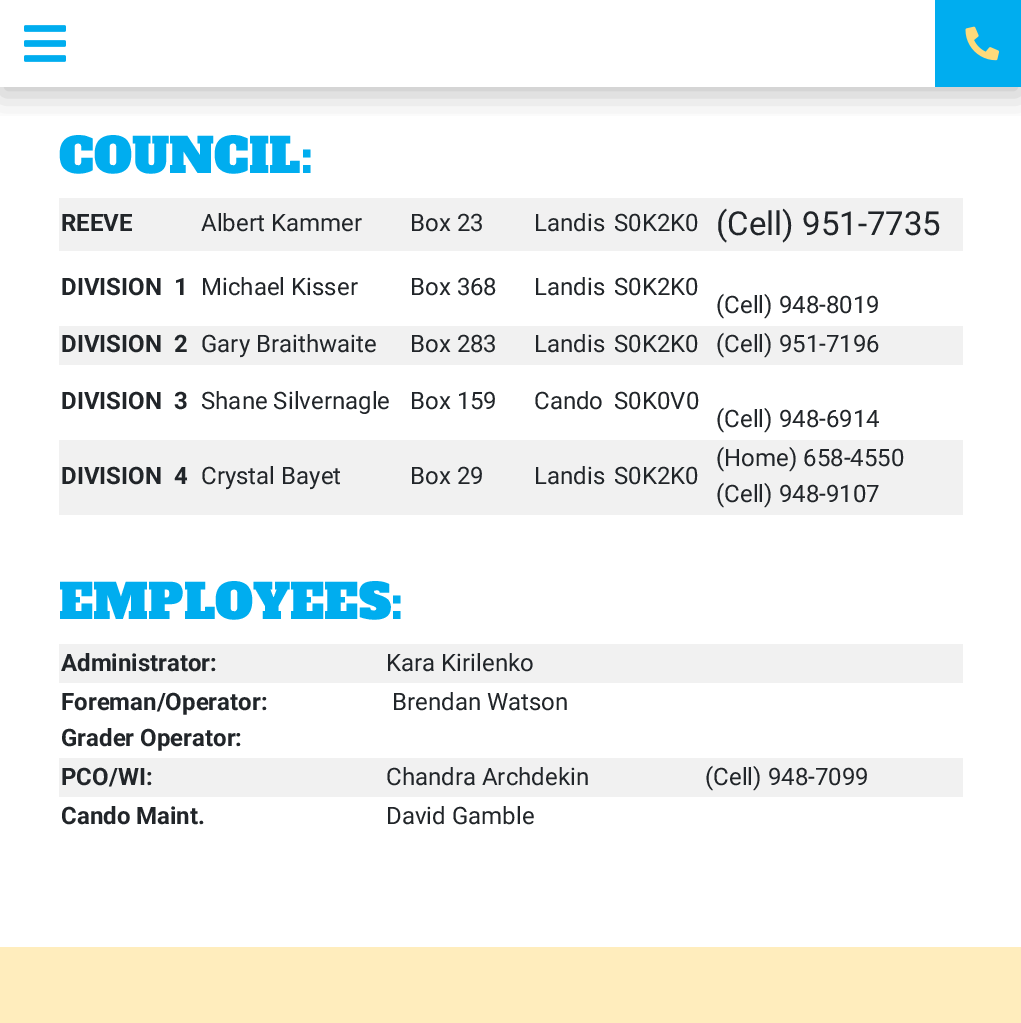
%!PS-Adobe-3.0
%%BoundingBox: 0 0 1021 1023
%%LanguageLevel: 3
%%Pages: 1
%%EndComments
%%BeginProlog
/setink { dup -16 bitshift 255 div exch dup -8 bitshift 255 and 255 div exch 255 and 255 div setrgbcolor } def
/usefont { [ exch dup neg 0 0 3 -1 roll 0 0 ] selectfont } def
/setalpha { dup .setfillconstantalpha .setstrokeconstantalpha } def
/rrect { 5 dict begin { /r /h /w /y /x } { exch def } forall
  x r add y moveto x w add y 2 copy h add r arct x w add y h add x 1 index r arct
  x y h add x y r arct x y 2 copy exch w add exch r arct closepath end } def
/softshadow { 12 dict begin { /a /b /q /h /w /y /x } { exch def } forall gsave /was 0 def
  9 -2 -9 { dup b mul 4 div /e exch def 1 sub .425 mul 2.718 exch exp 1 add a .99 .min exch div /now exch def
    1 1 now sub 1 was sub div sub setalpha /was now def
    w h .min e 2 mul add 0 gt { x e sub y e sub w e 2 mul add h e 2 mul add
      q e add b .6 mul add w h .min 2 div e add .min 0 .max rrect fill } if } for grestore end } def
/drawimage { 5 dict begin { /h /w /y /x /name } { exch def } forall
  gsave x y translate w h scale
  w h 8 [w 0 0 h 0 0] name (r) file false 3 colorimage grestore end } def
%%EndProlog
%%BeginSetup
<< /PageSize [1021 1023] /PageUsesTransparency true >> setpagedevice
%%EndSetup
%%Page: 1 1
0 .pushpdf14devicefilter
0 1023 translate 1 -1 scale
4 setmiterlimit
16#FFFFFF setink
0 0 1021 1023 rectfill
gsave
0 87 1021 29 rectclip
16#000000 setink
0 8 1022 87 0 15 0.24 softshadow
grestore
(img1.raw) 24 25 42 37 drawimage
16#00ADEF setink
935 0 86 87 rectfill
(img2.raw) 965 26 35 35 drawimage
/AlfaSlabOne-Regular 48 usefont
59 173 moveto (COUNCIL:) show
16#F1F1F1 setink
59 198 904 53 rectfill
/Roboto-Bold 24 usefont
16#212529 setink
61 231 moveto (REEVE) show
/Roboto-Regular 24 usefont
[
    [(Albert Kammer) 201 231]
    [(Box 23) 410 231]
    [(Landis) 534 231]
    [(S0K2K0) 614 231]
] { aload pop moveto show } forall
/Roboto-Regular 33 usefont
716 235 moveto (\(Cell\) 951-7735) show
/Roboto-Bold 24 usefont
61 295 moveto (DIVISION  1) show
/Roboto-Regular 24 usefont
[
    [(Michael Kisser) 201 295]
    [(Box 368) 410 295]
    [(Landis) 534 295]
    [(S0K2K0) 614 295]
    [(\(Cell\) 948-8019) 716 313]
] { aload pop moveto show } forall
16#F1F1F1 setink
59 326 904 39 rectfill
/Roboto-Bold 24 usefont
16#212529 setink
61 352 moveto (DIVISION  2) show
/Roboto-Regular 24 usefont
[
    [(Gary Braithwaite) 201 352]
    [(Box 283) 410 352]
    [(Landis) 534 352]
    [(S0K2K0) 614 352]
    [(\(Cell\) 951-7196) 716 352]
] { aload pop moveto show } forall
/Roboto-Bold 24 usefont
61 409 moveto (DIVISION  3) show
/Roboto-Regular 24 usefont
[
    [(Shane Silvernagle) 201 409]
    [(Box 159) 410 409]
    [(Cando) 534 409]
    [(S0K0V0) 614 409]
    [(\(Cell\) 948-6914) 716 427]
] { aload pop moveto show } forall
16#F1F1F1 setink
59 440 904 75 rectfill
/Roboto-Bold 24 usefont
16#212529 setink
61 484 moveto (DIVISION  4) show
/Roboto-Regular 24 usefont
[
    [(Crystal Bayet) 201 484]
    [(Box 29) 410 484]
    [(Landis) 534 484]
    [(S0K2K0) 614 484]
    [(\(Home\) 658-4550) 716 466]
    [(\(Cell\) 948-9107) 716 502]
] { aload pop moveto show } forall
/AlfaSlabOne-Regular 48 usefont
16#00ADEF setink
59 619 moveto (EMPLOYEES:) show
16#F1F1F1 setink
59 644 904 39 rectfill
/Roboto-Bold 24 usefont
16#212529 setink
61 671 moveto (Administrator:) show
/Roboto-Regular 24 usefont
386 671 moveto (Kara Kirilenko) show
/Roboto-Bold 24 usefont
61 710 moveto (Foreman/Operator:) show
61 746 moveto (Grader Operator:) show
/Roboto-Regular 24 usefont
392 710 moveto (Brendan Watson) show
16#F1F1F1 setink
59 758 904 39 rectfill
/Roboto-Bold 24 usefont
16#212529 setink
61 785 moveto (PCO/WI:) show
/Roboto-Regular 24 usefont
386 785 moveto (Chandra Archdekin) show
705 785 moveto (\(Cell\) 948-7099) show
/Roboto-Bold 24 usefont
61 824 moveto (Cando Maint.) show
/Roboto-Regular 24 usefont
386 824 moveto (David Gamble) show
16#FFEDBD setink
0 947 1021 76 rectfill
.poppdf14devicefilter showpage
%%EOF
